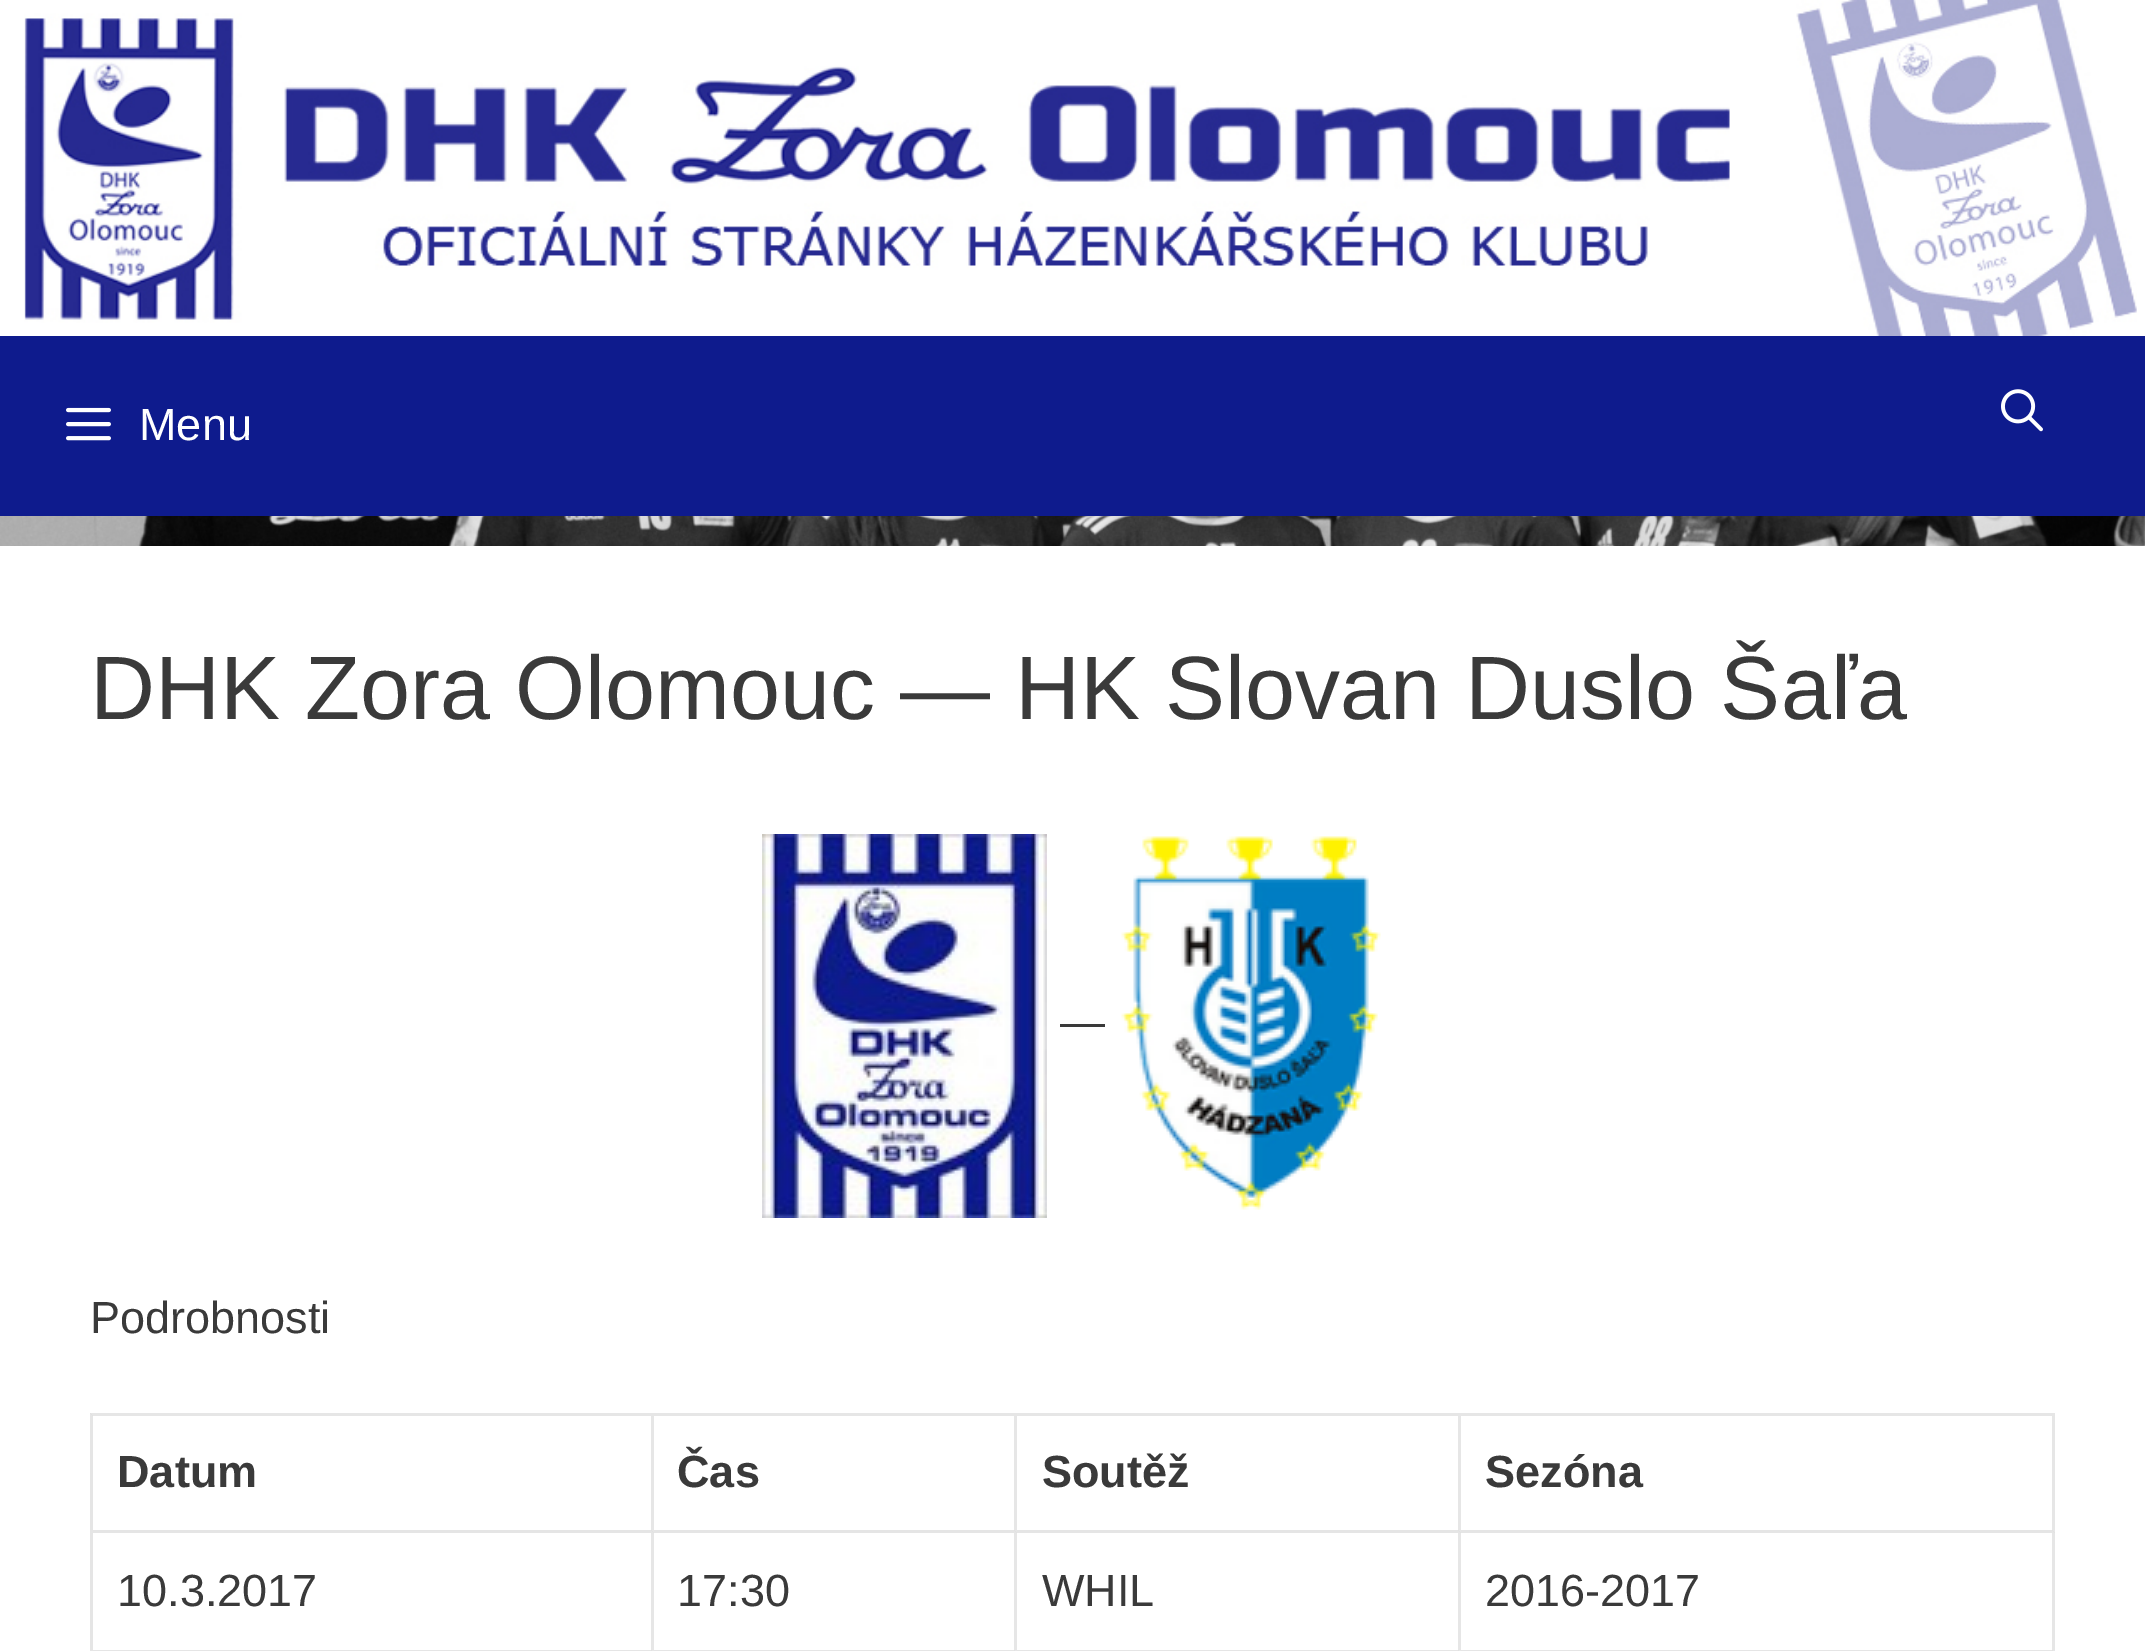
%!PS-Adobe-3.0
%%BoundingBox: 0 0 2145 1651
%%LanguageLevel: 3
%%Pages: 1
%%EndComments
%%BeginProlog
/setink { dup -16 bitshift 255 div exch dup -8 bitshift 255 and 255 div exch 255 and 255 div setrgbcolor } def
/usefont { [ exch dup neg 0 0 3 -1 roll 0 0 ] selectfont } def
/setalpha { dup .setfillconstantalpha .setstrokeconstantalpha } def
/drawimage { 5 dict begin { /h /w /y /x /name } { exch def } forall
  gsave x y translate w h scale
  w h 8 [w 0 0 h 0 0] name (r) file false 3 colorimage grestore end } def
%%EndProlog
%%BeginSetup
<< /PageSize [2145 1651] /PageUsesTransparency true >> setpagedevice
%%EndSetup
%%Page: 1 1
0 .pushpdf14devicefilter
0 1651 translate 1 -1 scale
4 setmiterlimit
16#FFFFFF setink
0 0 2145 1651 rectfill
(img1.raw) 0 516 2145 30 drawimage
(img2.raw) 24 0 2113 336 drawimage
16#0E1B8D setink
0 336 2145 180 rectfill
(img3.raw) 66 407 45 34 drawimage
/LiberationSans-Regular 45 usefont
16#FFFFFF setink
139 440 moveto (Menu) show
(img4.raw) 2001 389 42 43 drawimage
/LiberationSans-Regular 90 usefont
16#3A3A3A setink
90 719 moveto (DHK Zora Olomouc — HK Slovan Duslo Šaľa) show
(img5.raw) 762 834 285 384 drawimage
/LiberationSans-Regular 45 usefont
1060 1037 moveto (—) show
(img6.raw) 1121 836 260 374 drawimage
90 1333 moveto (Podrobnosti) show
16#E6E6E6 setink
90 1413 moveto 2055 1413 lineto 2055 1416 lineto 93 1416 lineto closepath fill
0.1 setalpha
16#000000 setink
90 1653 moveto 90 1413 lineto 93 1416 lineto 93 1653 lineto closepath fill
1 setalpha
16#E6E6E6 setink
654 1416 moveto 654 1533 lineto 651 1530 lineto 651 1416 lineto closepath fill
0.1 setalpha
16#000000 setink
654 1533 moveto 93 1533 lineto 93 1530 lineto 651 1530 lineto closepath fill
/LiberationSans-Bold 45 usefont
1 setalpha
16#3A3A3A setink
117 1487 moveto (Datum) show
16#E6E6E6 setink
1017 1416 moveto 1017 1533 lineto 1014 1530 lineto 1014 1416 lineto closepath fill
0.1 setalpha
16#000000 setink
1017 1533 moveto 654 1533 lineto 654 1530 lineto 1014 1530 lineto closepath fill
1 setalpha
16#3A3A3A setink
677 1487 moveto (Čas) show
16#E6E6E6 setink
1461 1416 moveto 1461 1533 lineto 1458 1530 lineto 1458 1416 lineto closepath fill
0.1 setalpha
16#000000 setink
1461 1533 moveto 1017 1533 lineto 1017 1530 lineto 1458 1530 lineto closepath fill
1 setalpha
16#3A3A3A setink
1042 1487 moveto (Soutěž) show
16#E6E6E6 setink
2055 1416 moveto 2055 1533 lineto 2052 1530 lineto 2052 1416 lineto closepath fill
0.1 setalpha
16#000000 setink
2055 1533 moveto 1461 1533 lineto 1461 1530 lineto 2052 1530 lineto closepath fill
1 setalpha
16#3A3A3A setink
1485 1487 moveto (Sezóna) show
16#E6E6E6 setink
654 1533 moveto 654 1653 lineto 651 1650 lineto 651 1533 lineto closepath fill
0.1 setalpha
16#000000 setink
654 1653 moveto 93 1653 lineto 93 1650 lineto 651 1650 lineto closepath fill
/LiberationSans-Regular 45 usefont
1 setalpha
16#3A3A3A setink
117 1606 moveto (10.3.2017) show
16#E6E6E6 setink
1017 1533 moveto 1017 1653 lineto 1014 1650 lineto 1014 1533 lineto closepath fill
0.1 setalpha
16#000000 setink
1017 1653 moveto 654 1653 lineto 654 1650 lineto 1014 1650 lineto closepath fill
1 setalpha
16#3A3A3A setink
677 1606 moveto (17:30) show
16#E6E6E6 setink
1461 1533 moveto 1461 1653 lineto 1458 1650 lineto 1458 1533 lineto closepath fill
0.1 setalpha
16#000000 setink
1461 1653 moveto 1017 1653 lineto 1017 1650 lineto 1458 1650 lineto closepath fill
1 setalpha
16#3A3A3A setink
1042 1606 moveto (WHIL) show
16#E6E6E6 setink
2055 1533 moveto 2055 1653 lineto 2052 1650 lineto 2052 1533 lineto closepath fill
0.1 setalpha
16#000000 setink
2055 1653 moveto 1461 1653 lineto 1461 1650 lineto 2052 1650 lineto closepath fill
1 setalpha
16#3A3A3A setink
1485 1606 moveto (2016-2017) show
.poppdf14devicefilter showpage
%%EOF
